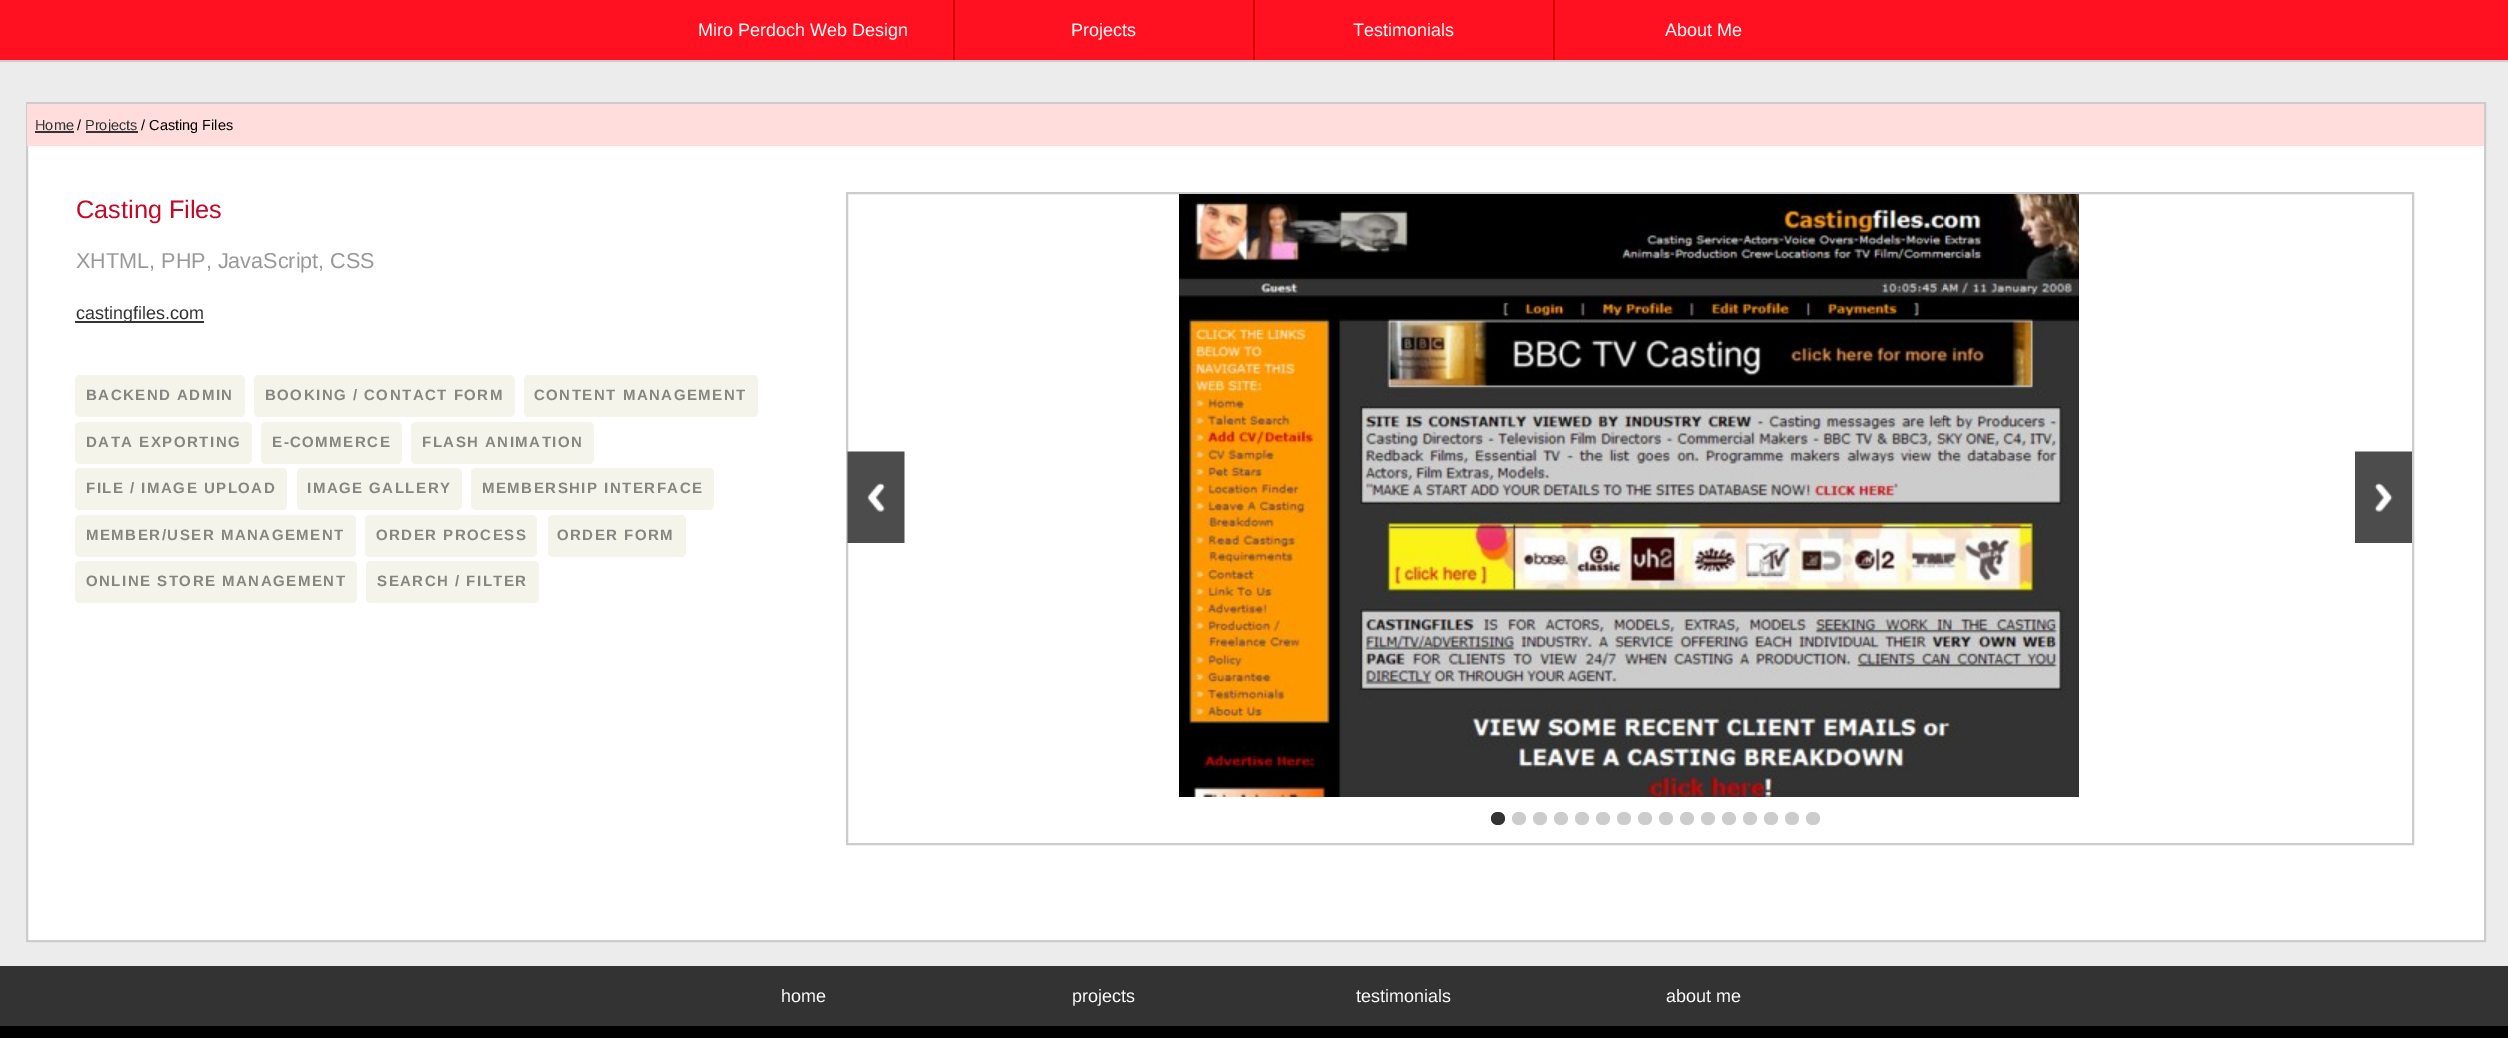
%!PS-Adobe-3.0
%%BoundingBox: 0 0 2508 1038
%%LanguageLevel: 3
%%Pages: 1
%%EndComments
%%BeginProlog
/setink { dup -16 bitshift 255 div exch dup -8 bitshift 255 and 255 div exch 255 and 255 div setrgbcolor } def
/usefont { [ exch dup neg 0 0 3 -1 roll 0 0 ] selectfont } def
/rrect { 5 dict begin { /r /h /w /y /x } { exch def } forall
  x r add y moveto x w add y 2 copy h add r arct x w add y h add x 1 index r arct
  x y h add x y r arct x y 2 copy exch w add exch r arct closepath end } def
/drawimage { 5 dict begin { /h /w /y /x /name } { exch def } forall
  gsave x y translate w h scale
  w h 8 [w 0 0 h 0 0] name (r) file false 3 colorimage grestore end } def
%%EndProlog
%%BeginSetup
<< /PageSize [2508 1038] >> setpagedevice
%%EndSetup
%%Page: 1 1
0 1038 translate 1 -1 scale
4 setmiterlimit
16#ECECEC setink
0 0 2508 1038 rectfill
[
    [0 0 2508 60 16#FF1122]
    [0 60 2508 2 16#CCCCCC]
    [953 0 2 60 16#DD0000]
] { aload pop setink rectfill } forall
/LiberationSans-Regular 18 usefont
16#FFFFFF setink
698 36 moveto (Miro Perdoch Web Design) show
16#DD0000 setink
1253 0 2 60 rectfill
16#FFFFFF setink
1071 36 moveto (Projects) show
16#DD0000 setink
1553 0 2 60 rectfill
16#FFFFFF setink
1353 36 moveto (Testimonials) show
1665 36 moveto (About Me) show
28 146 2456 794 rectfill
16#CCCCCC setink
2 setlinewidth
27 103 2458 838 rectstroke
16#FFDDDD setink
27 104 2457 42 rectfill
/LiberationSans-Regular 14.5 usefont
16#333333 setink
35 130 moveto (Home) show
35 131 39 2 rectfill
16#000000 setink
77 130 moveto (/) show
16#333333 setink
86 131 52 2 rectfill
85 130 moveto (Projects) show
16#000000 setink
141 130 moveto (/ Casting Files) show
/LiberationSans-Regular 25.25 usefont
16#C30A29 setink
76 218 moveto (Casting Files) show
/LiberationSans-Regular 21.6 usefont
16#999999 setink
76 268 moveto (XHTML, PHP, JavaScript, CSS) show
16#333333 setink
75 321 129 2 rectfill
/LiberationSans-Regular 18 usefont
76 319 moveto (castingfiles.com) show
16#F4F4EB setink
75 375 170 42 5 rrect fill
/LiberationSans-Bold 15 usefont
16#868681 setink
86 400 moveto 1.5 0 (BACKEND ADMIN) ashow
16#F4F4EB setink
254 375 261 42 5 rrect fill
16#868681 setink
265 400 moveto 1.5 0 (BOOKING / CONTACT FORM) ashow
16#F4F4EB setink
524 375 234 42 5 rrect fill
16#868681 setink
534 400 moveto 1.5 0 (CONTENT MANAGEMENT) ashow
16#F4F4EB setink
75 422 177 42 5 rrect fill
16#868681 setink
86 447 moveto 1.5 0 (DATA EXPORTING) ashow
16#F4F4EB setink
261 422 141 42 5 rrect fill
16#868681 setink
272 447 moveto 1.5 0 (E-COMMERCE) ashow
16#F4F4EB setink
411 422 183 42 5 rrect fill
16#868681 setink
422 447 moveto 1.5 0 (FLASH ANIMATION) ashow
16#F4F4EB setink
75 468 212 42 5 rrect fill
16#868681 setink
86 493 moveto 1.5 0 (FILE / IMAGE UPLOAD) ashow
16#F4F4EB setink
297 468 165 42 5 rrect fill
16#868681 setink
307 493 moveto 1.5 0 (IMAGE GALLERY) ashow
16#F4F4EB setink
471 468 243 42 5 rrect fill
16#868681 setink
482 493 moveto 1.5 0 (MEMBERSHIP INTERFACE) ashow
16#F4F4EB setink
75 515 281 42 5 rrect fill
16#868681 setink
86 540 moveto 1.5 0 (MEMBER/USER MANAGEMENT) ashow
16#F4F4EB setink
365 515 172 42 5 rrect fill
16#868681 setink
376 540 moveto 1.5 0 (ORDER PROCESS) ashow
16#F4F4EB setink
548 515 138 42 5 rrect fill
16#868681 setink
557 540 moveto 1.5 0 (ORDER FORM) ashow
16#F4F4EB setink
75 561 282 42 5 rrect fill
16#868681 setink
86 586 moveto 1.5 0 (ONLINE STORE MANAGEMENT) ashow
16#F4F4EB setink
366 561 173 42 5 rrect fill
16#868681 setink
377 586 moveto 1.5 0 (SEARCH / FILTER) ashow
16#CCCCCC setink
847 193 1566 651 rectstroke
(img1.raw) 847 451 58 92 drawimage
(img2.raw) 1179 194 900 603 drawimage
(img3.raw) 2355 451 57 92 drawimage
16#333333 setink
1491 812 14 13 6.5 rrect fill
16#CCCCCC setink
1512 812 14 13 6.5 rrect fill
1533 812 14 13 6.5 rrect fill
1554 812 14 13 6.5 rrect fill
1575 812 14 13 6.5 rrect fill
1596 812 14 13 6.5 rrect fill
1617 812 14 13 6.5 rrect fill
1638 812 14 13 6.5 rrect fill
1659 812 14 13 6.5 rrect fill
1680 812 14 13 6.5 rrect fill
1701 812 14 13 6.5 rrect fill
1722 812 14 13 6.5 rrect fill
1743 812 14 13 6.5 rrect fill
1764 812 14 13 6.5 rrect fill
1785 812 14 13 6.5 rrect fill
1806 812 14 13 6.5 rrect fill
16#000000 setink
0 1026 2508 12 rectfill
16#333333 setink
0 966 2508 60 rectfill
/LiberationSans-Regular 18 usefont
16#FFFFFF setink
[
    [(home) 781 1002]
    [(projects) 1072 1002]
    [(testimonials) 1356 1002]
    [(about me) 1666 1002]
] { aload pop moveto show } forall
showpage
%%EOF
